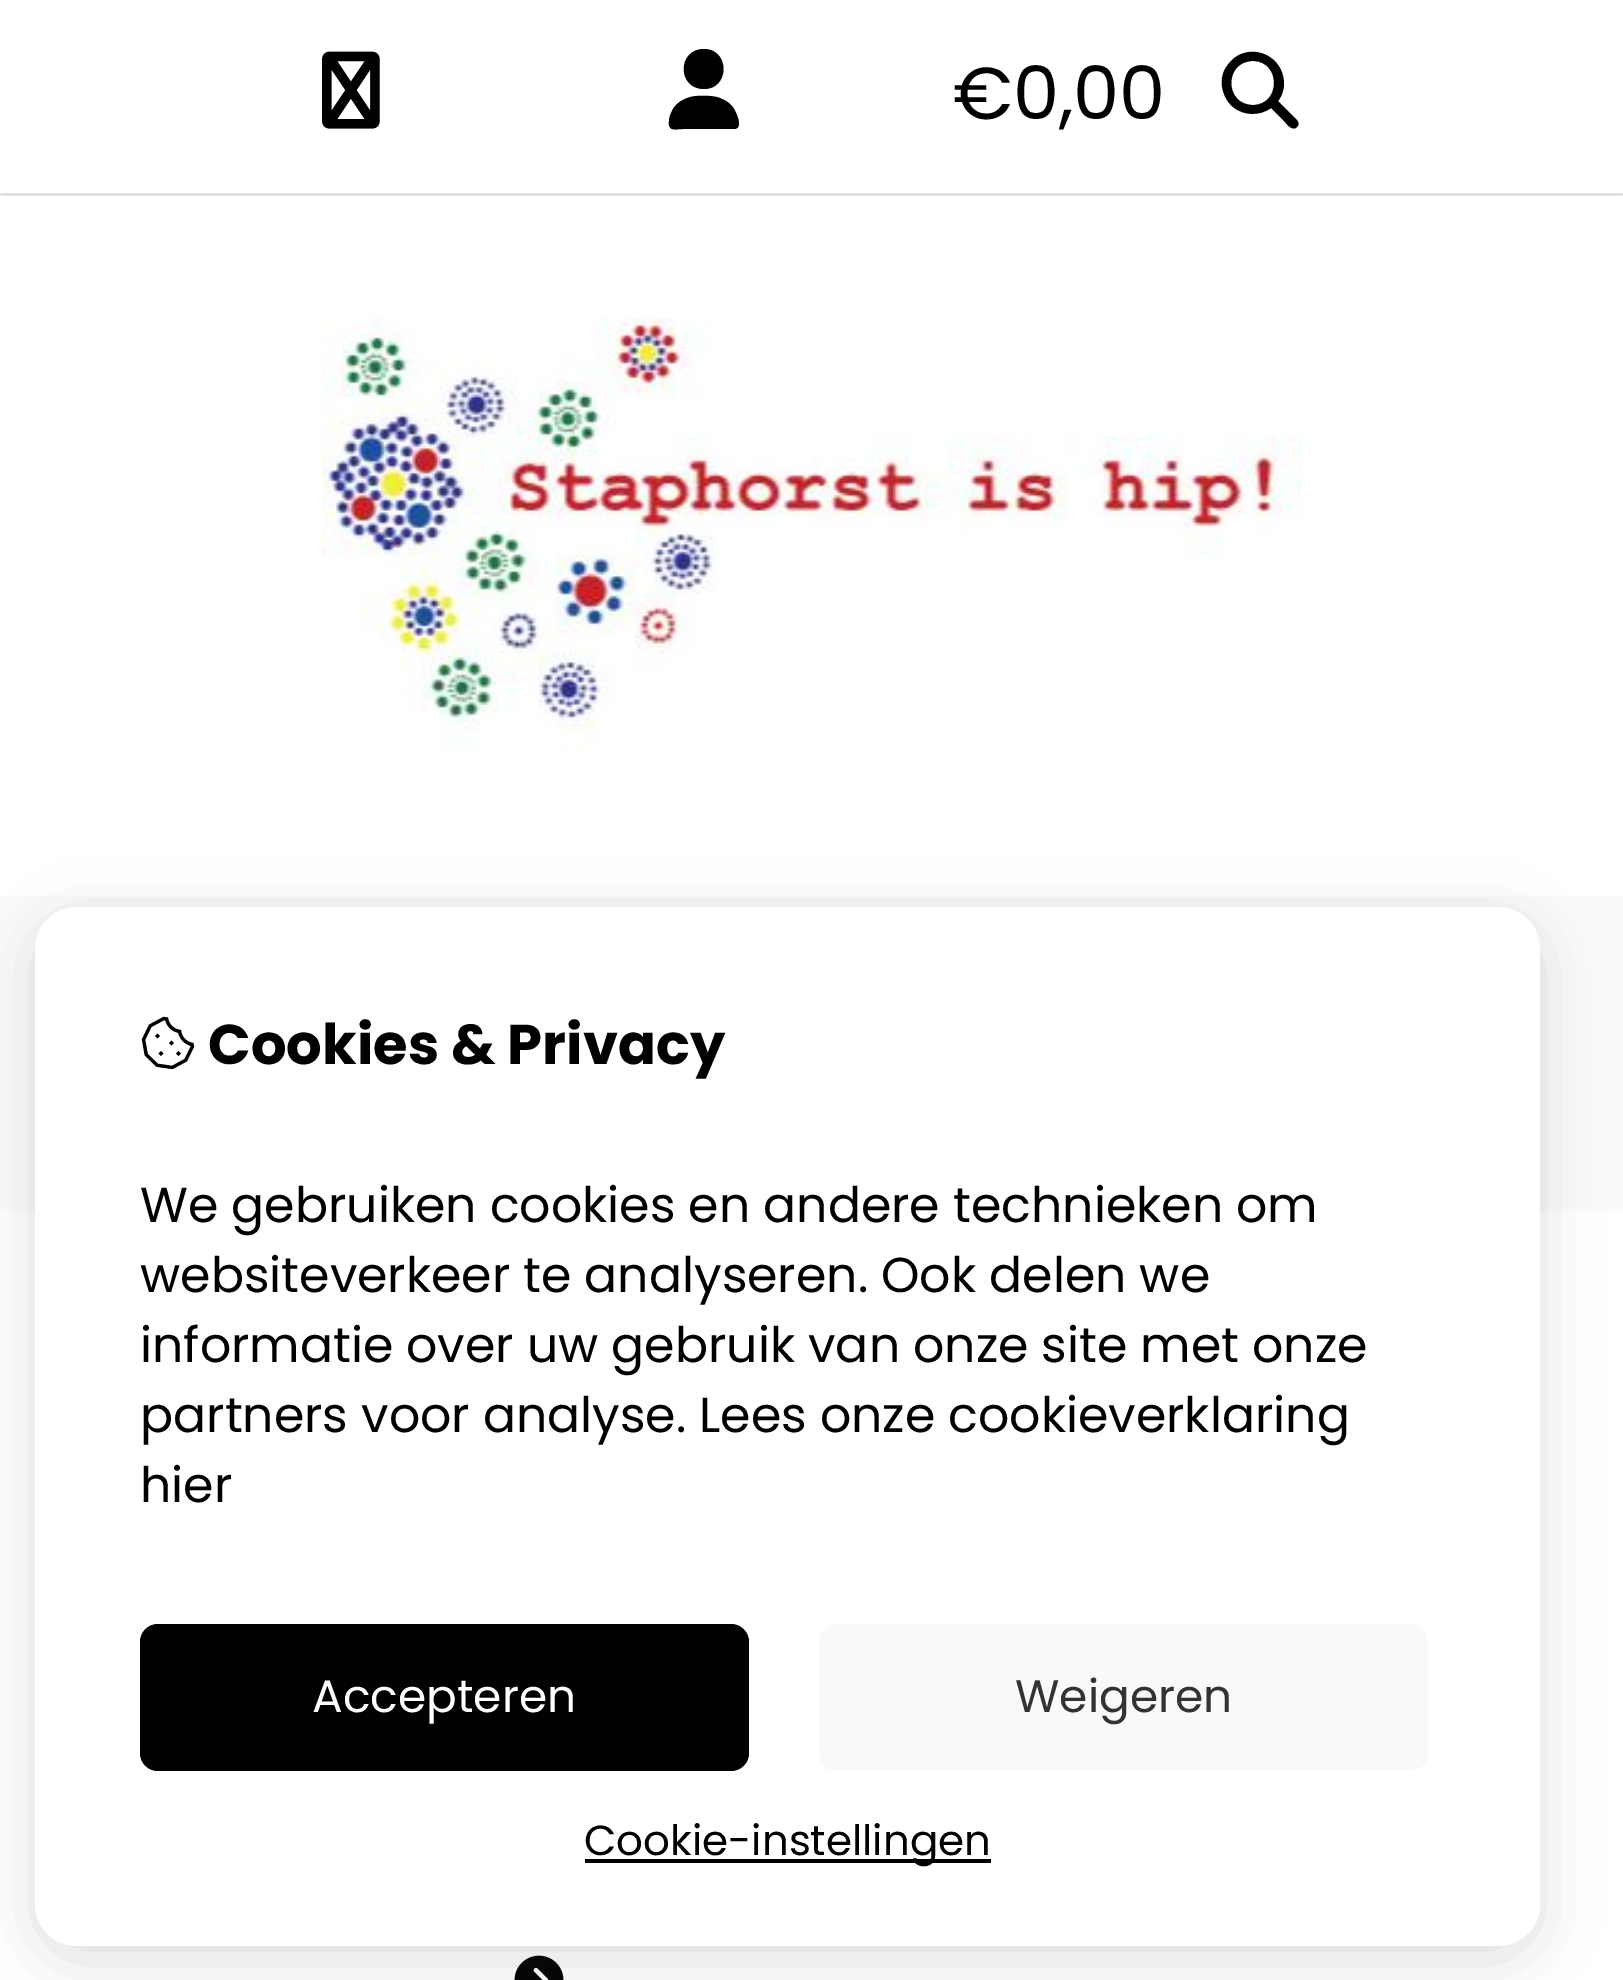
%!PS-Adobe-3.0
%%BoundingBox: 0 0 1623 1980
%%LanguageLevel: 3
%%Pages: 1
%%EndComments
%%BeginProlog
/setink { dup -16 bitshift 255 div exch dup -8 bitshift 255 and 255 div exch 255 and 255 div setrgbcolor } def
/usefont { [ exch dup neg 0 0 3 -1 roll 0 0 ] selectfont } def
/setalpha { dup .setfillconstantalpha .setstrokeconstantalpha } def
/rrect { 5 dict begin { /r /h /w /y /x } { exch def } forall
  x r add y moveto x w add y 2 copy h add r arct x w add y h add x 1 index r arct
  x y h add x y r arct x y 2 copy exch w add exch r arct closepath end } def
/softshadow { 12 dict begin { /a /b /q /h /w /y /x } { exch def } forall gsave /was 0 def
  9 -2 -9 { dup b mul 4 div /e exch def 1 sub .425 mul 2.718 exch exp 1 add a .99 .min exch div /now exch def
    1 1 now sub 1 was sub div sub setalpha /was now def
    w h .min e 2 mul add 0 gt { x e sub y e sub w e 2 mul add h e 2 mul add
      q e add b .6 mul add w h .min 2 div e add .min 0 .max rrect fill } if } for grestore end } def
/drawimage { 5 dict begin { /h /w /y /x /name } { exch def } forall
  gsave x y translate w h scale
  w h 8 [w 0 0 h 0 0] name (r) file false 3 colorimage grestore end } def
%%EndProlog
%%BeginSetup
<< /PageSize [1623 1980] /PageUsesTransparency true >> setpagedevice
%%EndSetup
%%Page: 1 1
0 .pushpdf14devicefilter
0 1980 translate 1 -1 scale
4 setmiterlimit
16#FAFAFA setink
0 0 1623 1980 rectfill
16#000000 setink
0 0 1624 193 0 35 0.2 softshadow
16#FFFFFF setink
0 0 1623 193 rectfill
(img1.raw) 322 51 58 78 drawimage
16#000000 setink
704 89 moveto 730 89 730 49 704 49 curveto 677 49 677 89 704 89 curveto closepath 696 96 moveto 687 97 678 101 673 109 curveto 671 113 669 117 669 121 curveto 668 132 675 129 683 129 curveto 734 129 lineto 744 129 736 112 734 109 curveto 731 104 727 101 722 99 curveto 714 95 705 96 696 96 curveto closepath fill
/Poppins-Regular 73.5 usefont
953 119 moveto (€0,00) show
1284 83 moveto 1284 90 1282 96 1278 101 curveto 1291 114 lineto 1293 117 1302 122 1297 127 curveto 1292 132 1286 123 1284 121 curveto 1271 108 lineto 1260 116 1244 116 1233 107 curveto 1227 102 1223 94 1222 86 curveto 1221 79 1223 71 1227 66 curveto 1244 40 1283 52 1284 83 curveto closepath 1253 105 moveto 1281 105 1281 61 1253 61 curveto 1224 61 1224 105 1253 105 curveto closepath fill
16#FFFFFF setink
0 196 1623 1784 rectfill
(img2.raw) 322 318 980 433 drawimage
16#FAFAFA setink
0 896 1623 315 rectfill
(img3.raw) 514 1955 50 25 drawimage
16#4C4C4C setink
35 921 1505 1039 42 30 0.2 softshadow
16#FFFFFF setink
35 907 1505 1039 42 rrect fill
(img4.raw) 141 1016 54 54 drawimage
/Poppins-Bold 56 usefont
16#000000 setink
208 1064 moveto (Cookies & Privacy) show
/Poppins-Regular 49 usefont
[
    [(We gebruiken cookies en andere technieken om) 140 1222]
    [(websiteverkeer te analyseren. Ook delen we) 140 1292]
    [(informatie over uw gebruik van onze site met onze) 140 1362]
    [(partners voor analyse. Lees onze cookieverklaring) 140 1432]
    [(hier) 140 1502]
] { aload pop moveto show } forall
140 1624 609 147 18 rrect fill
/Poppins-Regular 45.5 usefont
16#FFFFFF setink
312 1712 moveto (Accepteren) show
16#F9F9F9 setink
819 1624 609 147 18 rrect fill
16#333333 setink
1015 1712 moveto (Weigeren) show
16#000000 setink
585 1859 406 4 rectfill
/Poppins-Regular 42 usefont
584 1855 moveto (Cookie-instellingen) show
.poppdf14devicefilter showpage
%%EOF
